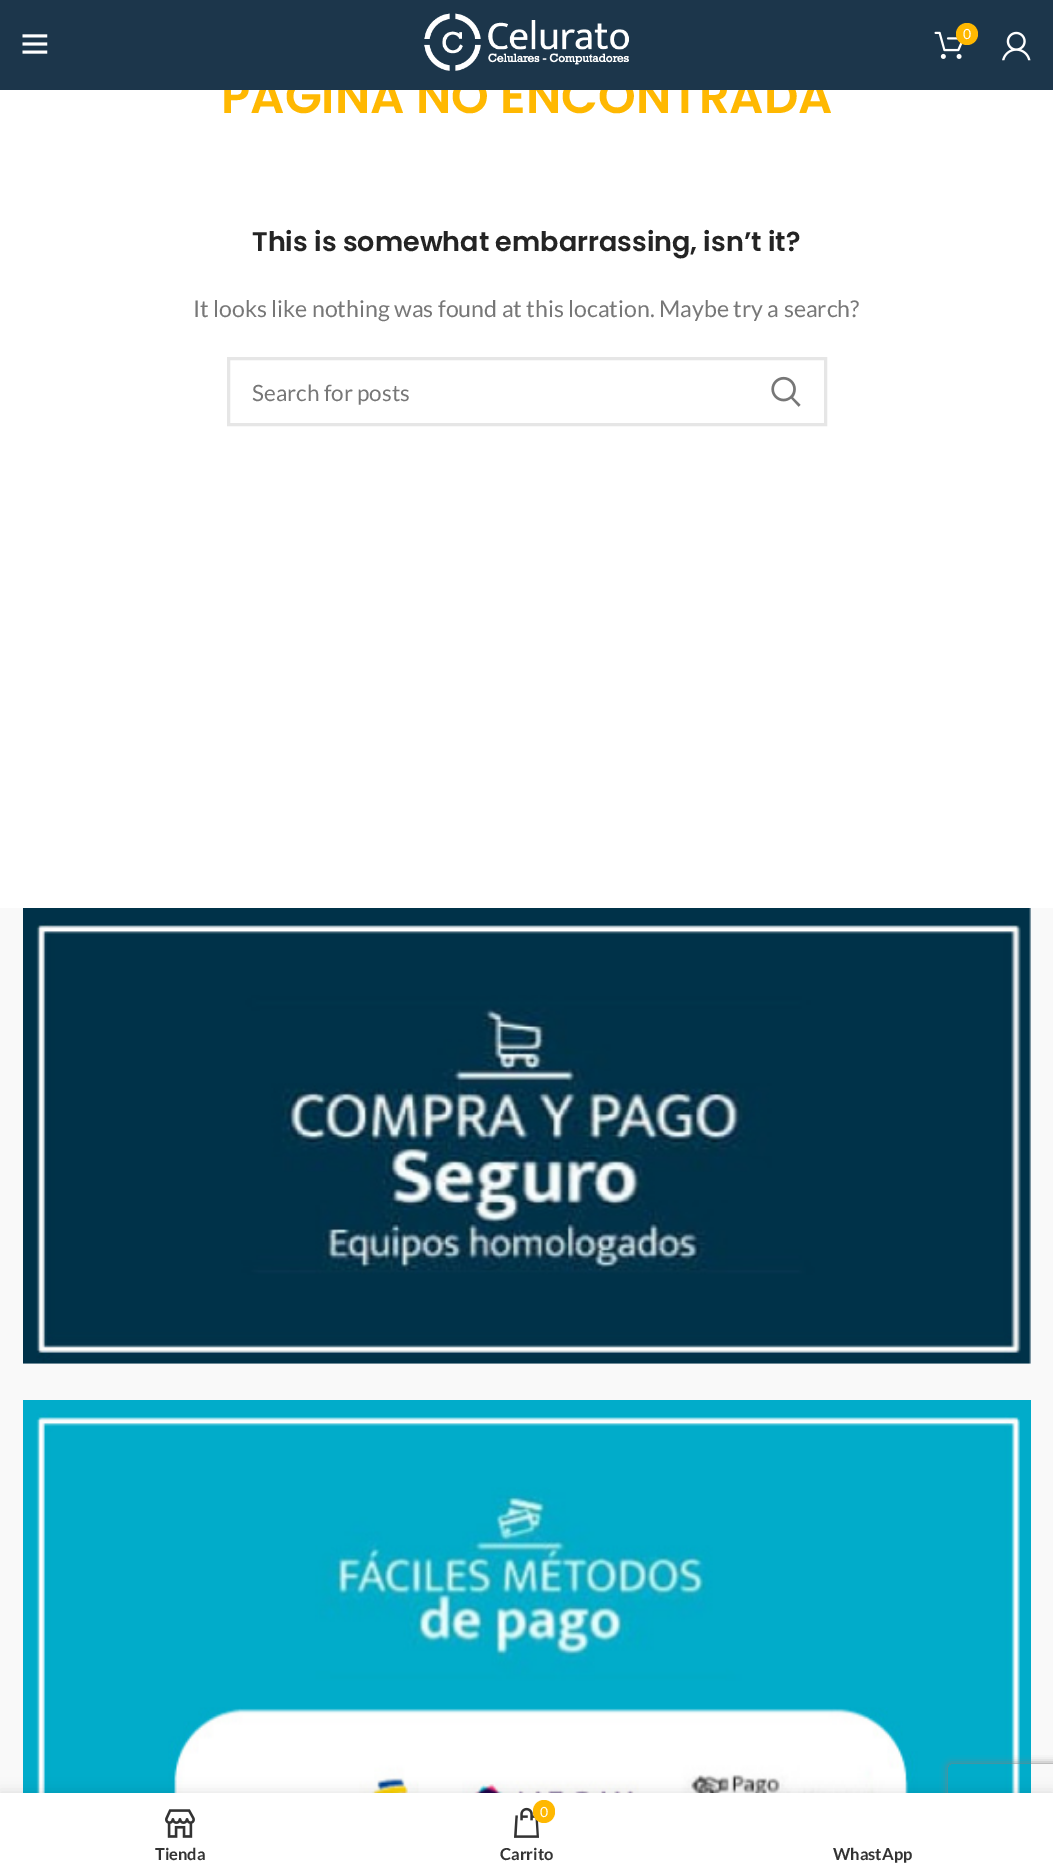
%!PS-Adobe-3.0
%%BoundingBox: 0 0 1053 1874
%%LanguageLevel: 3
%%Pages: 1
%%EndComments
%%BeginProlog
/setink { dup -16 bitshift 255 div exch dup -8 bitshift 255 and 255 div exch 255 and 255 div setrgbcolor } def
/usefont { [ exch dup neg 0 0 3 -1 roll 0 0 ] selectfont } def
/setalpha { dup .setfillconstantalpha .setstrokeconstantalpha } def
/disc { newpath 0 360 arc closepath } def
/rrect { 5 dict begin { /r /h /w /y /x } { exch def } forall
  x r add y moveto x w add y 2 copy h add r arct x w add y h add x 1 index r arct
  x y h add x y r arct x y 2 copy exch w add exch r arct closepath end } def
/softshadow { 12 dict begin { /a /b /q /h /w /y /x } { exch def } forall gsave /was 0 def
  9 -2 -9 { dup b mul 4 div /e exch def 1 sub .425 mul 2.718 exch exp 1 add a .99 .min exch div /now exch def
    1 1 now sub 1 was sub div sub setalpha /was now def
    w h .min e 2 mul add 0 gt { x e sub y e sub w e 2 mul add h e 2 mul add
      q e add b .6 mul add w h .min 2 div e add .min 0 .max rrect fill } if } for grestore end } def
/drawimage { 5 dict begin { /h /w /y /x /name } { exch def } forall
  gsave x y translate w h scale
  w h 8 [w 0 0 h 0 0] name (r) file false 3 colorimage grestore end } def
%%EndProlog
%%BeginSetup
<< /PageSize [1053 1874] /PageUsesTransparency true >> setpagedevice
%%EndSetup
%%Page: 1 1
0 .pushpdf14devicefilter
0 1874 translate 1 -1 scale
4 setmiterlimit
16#FFFFFF setink
0 0 1053 1874 rectfill
/Poppins-SemiBold 48 usefont
16#FFB801 setink
221 113 moveto (PÁGINA NO ENCONTRADA) show
16#1C364B setink
0 0 1053 90 rectfill
(img1.raw) 22 34 26 20 drawimage
(img2.raw) 424 13 205 58 drawimage
(img3.raw) 934 31 29 28 drawimage
16#FFB801 setink
967 34 11 disc fill
/Lato-Regular 14 usefont
16#FFFFFF setink
963 39 moveto (0) show
(img4.raw) 1002 31 29 30 drawimage
/Poppins-SemiBold 27 usefont
16#242424 setink
252 251 moveto (This is somewhat embarrassing, isn’t it?) show
/Lato-Regular 23.1 usefont
16#777777 setink
193 317 moveto (It looks like nothing was found at this location. Maybe try a search?) show
16#E6E6E6 setink
3 setlinewidth
228.5 358.5 597 66 rectstroke
/Lato-Regular 22.5 usefont
16#777777 setink
252 401 moveto (Search for posts) show
(img5.raw) 771 376 30 31 drawimage
16#F9F9F9 setink
0 908 1053 885 rectfill
(img6.raw) 23 908 1008 456 drawimage
(img7.raw) 23 1400 1008 393 drawimage
16#000000 setink
0 1793 1053 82 0 7 0.12 softshadow
gsave
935 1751 moveto 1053 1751 lineto 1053 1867 lineto 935 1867 lineto closepath 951 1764 moveto 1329 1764 lineto 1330.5 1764 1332 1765.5 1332 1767 curveto 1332 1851 lineto 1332 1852.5 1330.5 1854 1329 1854 curveto 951 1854 lineto 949.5 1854 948 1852.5 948 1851 curveto 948 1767 lineto 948 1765.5 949.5 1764 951 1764 curveto closepath eoclip newpath
16#808080 setink
948 1764 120 90 3 4 1 softshadow
grestore
16#FFFFFF setink
0 1793 1053 81 rectfill
(img8.raw) 165 1809 30 29 drawimage
/Lato-Bold 16.5 usefont
16#333333 setink
155 1860 moveto (Tienda) show
(img9.raw) 514 1807 25 31 drawimage
16#FFB801 setink
533 1800 22 23 11 rrect fill
/Lato-Regular 14 usefont
16#FFFFFF setink
540 1817 moveto (0) show
/Lato-Bold 16.5 usefont
16#333333 setink
500 1860 moveto (Carrito) show
833 1860 moveto (WhastApp) show
.poppdf14devicefilter showpage
%%EOF
